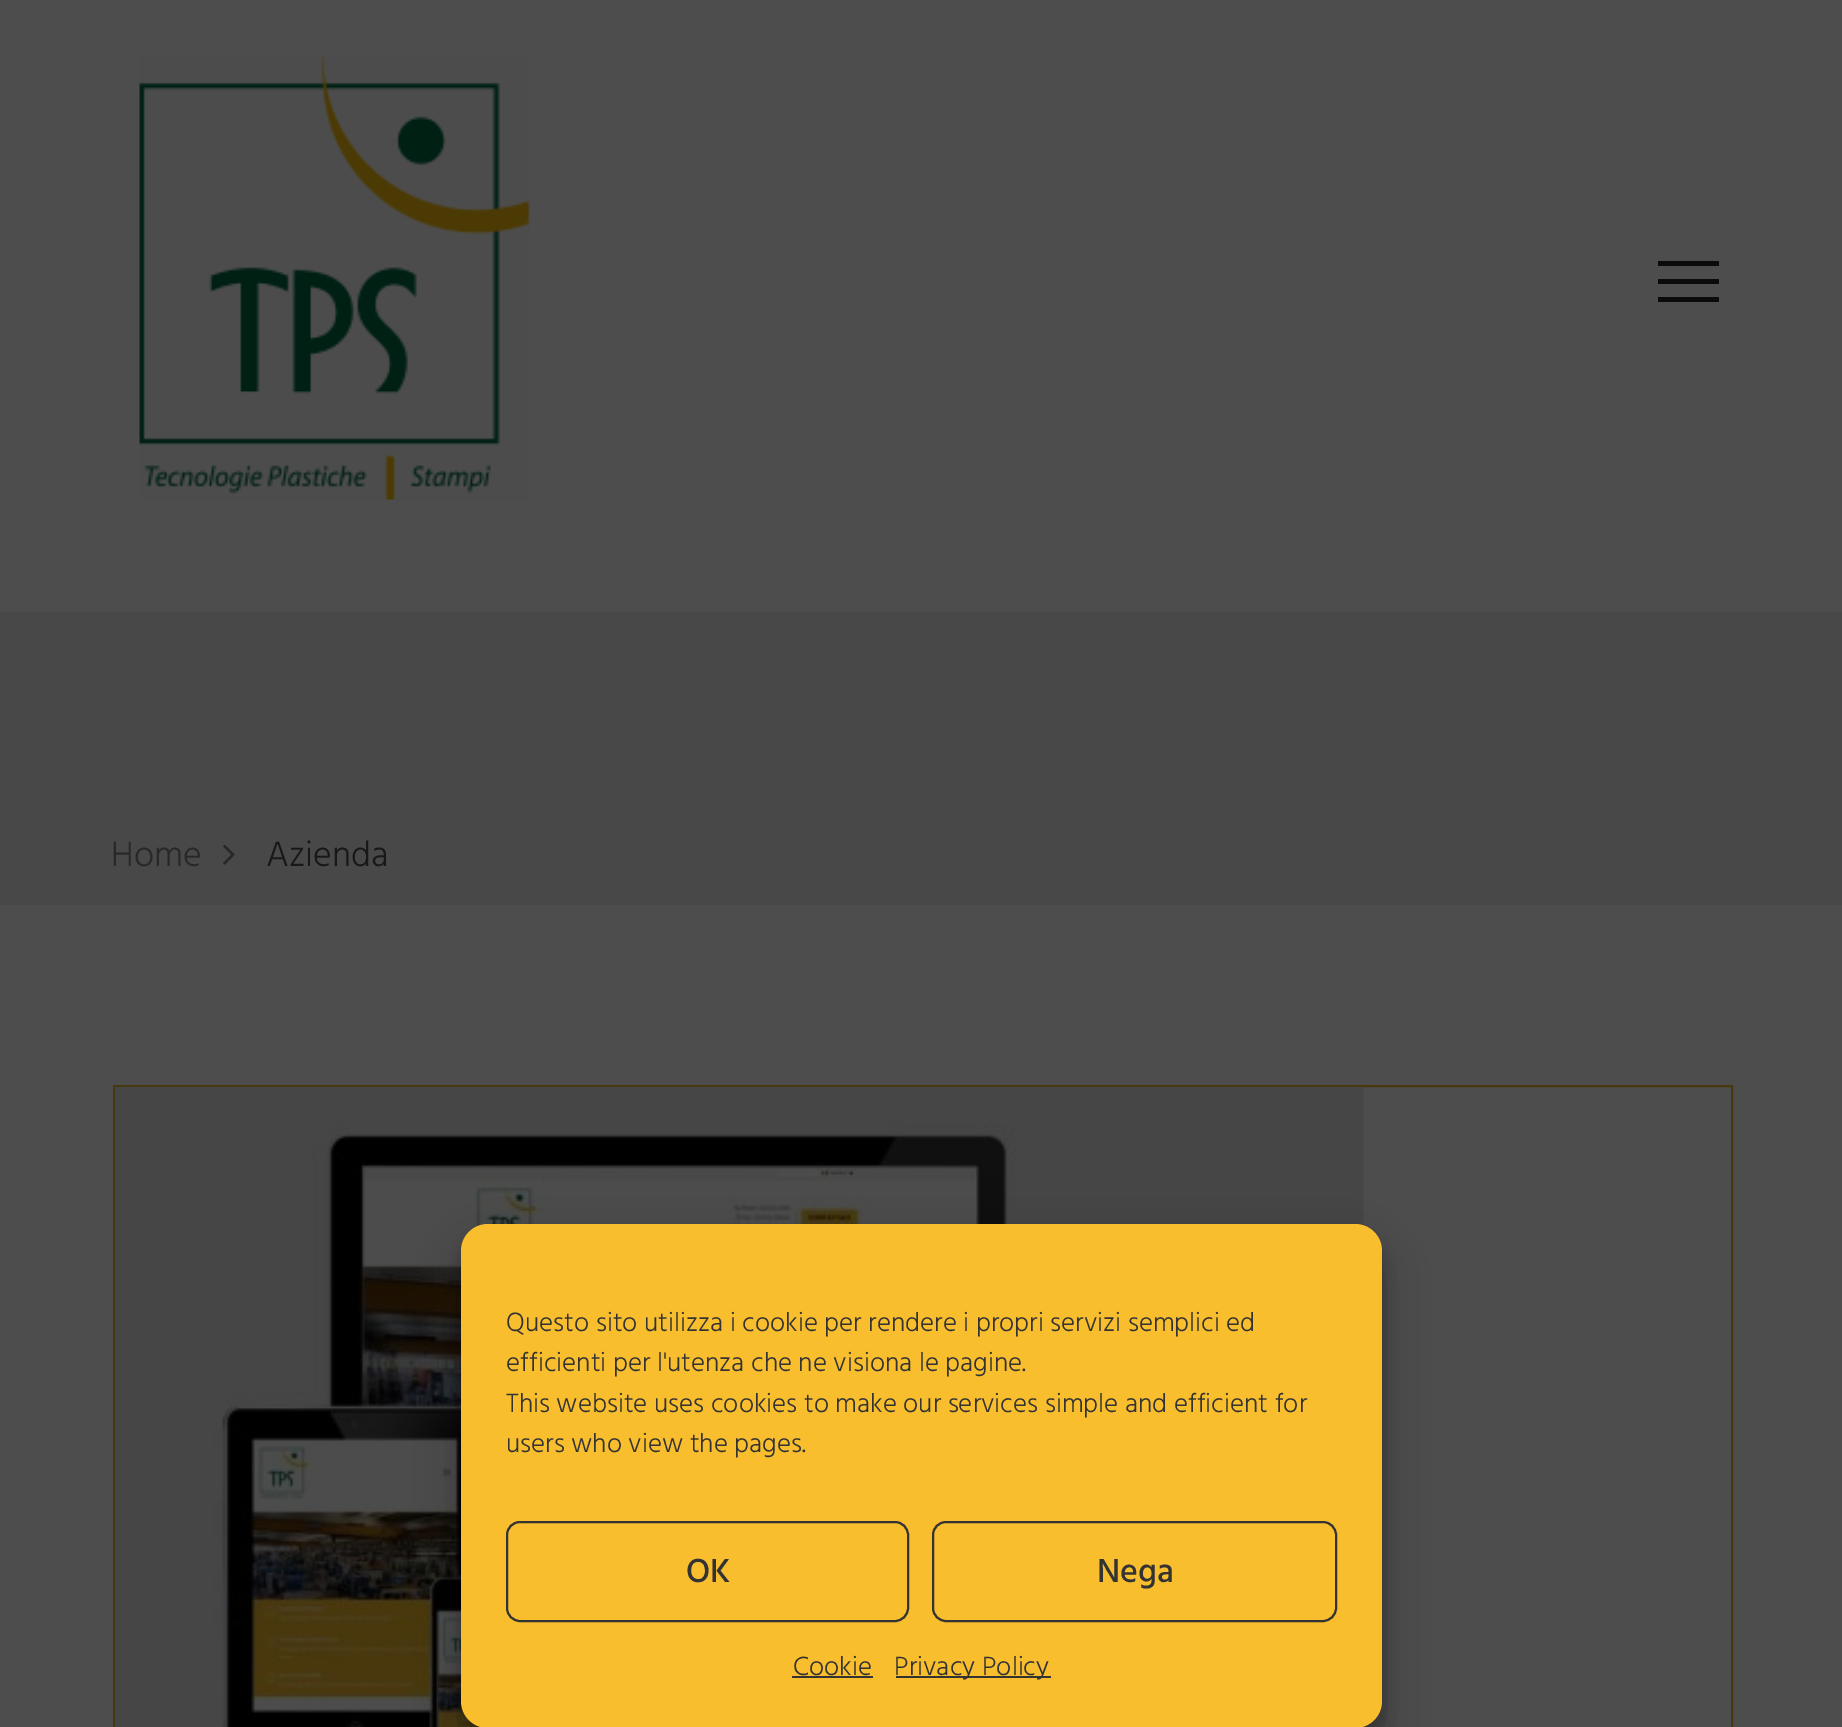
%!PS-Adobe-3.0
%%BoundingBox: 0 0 1842 1727
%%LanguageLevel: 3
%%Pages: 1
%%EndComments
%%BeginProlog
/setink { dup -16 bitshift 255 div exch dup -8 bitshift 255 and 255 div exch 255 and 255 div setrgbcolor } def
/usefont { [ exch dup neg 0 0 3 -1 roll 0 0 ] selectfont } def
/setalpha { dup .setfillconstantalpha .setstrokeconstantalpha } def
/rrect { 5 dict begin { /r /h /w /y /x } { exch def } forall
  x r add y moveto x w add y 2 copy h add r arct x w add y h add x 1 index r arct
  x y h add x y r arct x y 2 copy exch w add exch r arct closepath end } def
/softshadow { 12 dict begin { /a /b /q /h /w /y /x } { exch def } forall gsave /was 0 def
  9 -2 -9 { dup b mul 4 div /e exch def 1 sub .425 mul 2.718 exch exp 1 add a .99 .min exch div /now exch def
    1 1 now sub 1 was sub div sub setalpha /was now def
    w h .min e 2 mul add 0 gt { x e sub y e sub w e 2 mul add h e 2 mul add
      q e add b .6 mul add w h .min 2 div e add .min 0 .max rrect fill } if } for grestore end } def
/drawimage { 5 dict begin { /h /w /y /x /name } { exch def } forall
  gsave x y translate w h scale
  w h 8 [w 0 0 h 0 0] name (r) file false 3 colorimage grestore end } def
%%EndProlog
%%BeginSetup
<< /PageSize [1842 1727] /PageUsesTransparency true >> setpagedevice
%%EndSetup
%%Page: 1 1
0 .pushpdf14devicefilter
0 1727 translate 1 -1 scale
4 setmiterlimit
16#4D4D4D setink
0 0 1842 1727 rectfill
(img1.raw) 139 56 391 444 drawimage
[
    [1658 279 61 5 16#0B0B0B]
    [1658 261 61 5 16#0B0B0B]
    [1658 297 61 5 16#0B0B0B]
    [0 612 1842 293 16#484848]
] { aload pop setink rectfill } forall
/Hind-Light 36 usefont
16#282828 setink
111 866 moveto (Home) show
(img2.raw) 223 844 12 21 drawimage
16#181818 setink
266 866 moveto (Azienda) show
16#4A380D setink
2 setlinewidth
114 1086 1618 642 rectstroke
(img3.raw) 114 1086 1250 641 drawimage
16#000000 setink
461 1238 921 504 27 7 0.23 softshadow
461 1247 921 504 27 22.5 0.19 softshadow
16#F8BE2E setink
461 1224 921 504 27 rrect fill
/Hind-Light 27 usefont
16#333333 setink
[
    [(Questo sito utilizza i cookie per rendere i propri servizi semplici ed) 506 1331]
    [(efficienti per l'utenza che ne visiona le pagine.) 506 1371]
    [(This website uses cookies to make our services simple and efficient for) 506 1412]
    [(users who view the pages.) 506 1452]
] { aload pop moveto show } forall
507 1522 401 99 13 rrect stroke
/Hind-Medium 34 usefont
686 1582 moveto (OK) show
933 1522 403 99 13 rrect stroke
1097 1582 moveto (Nega) show
/Hind-Light 27 usefont
793 1675 moveto (Cookie) show
792 1676 81 2 rectfill
896 1676 155 2 rectfill
894 1675 moveto (Privacy Policy) show
.poppdf14devicefilter showpage
%%EOF
